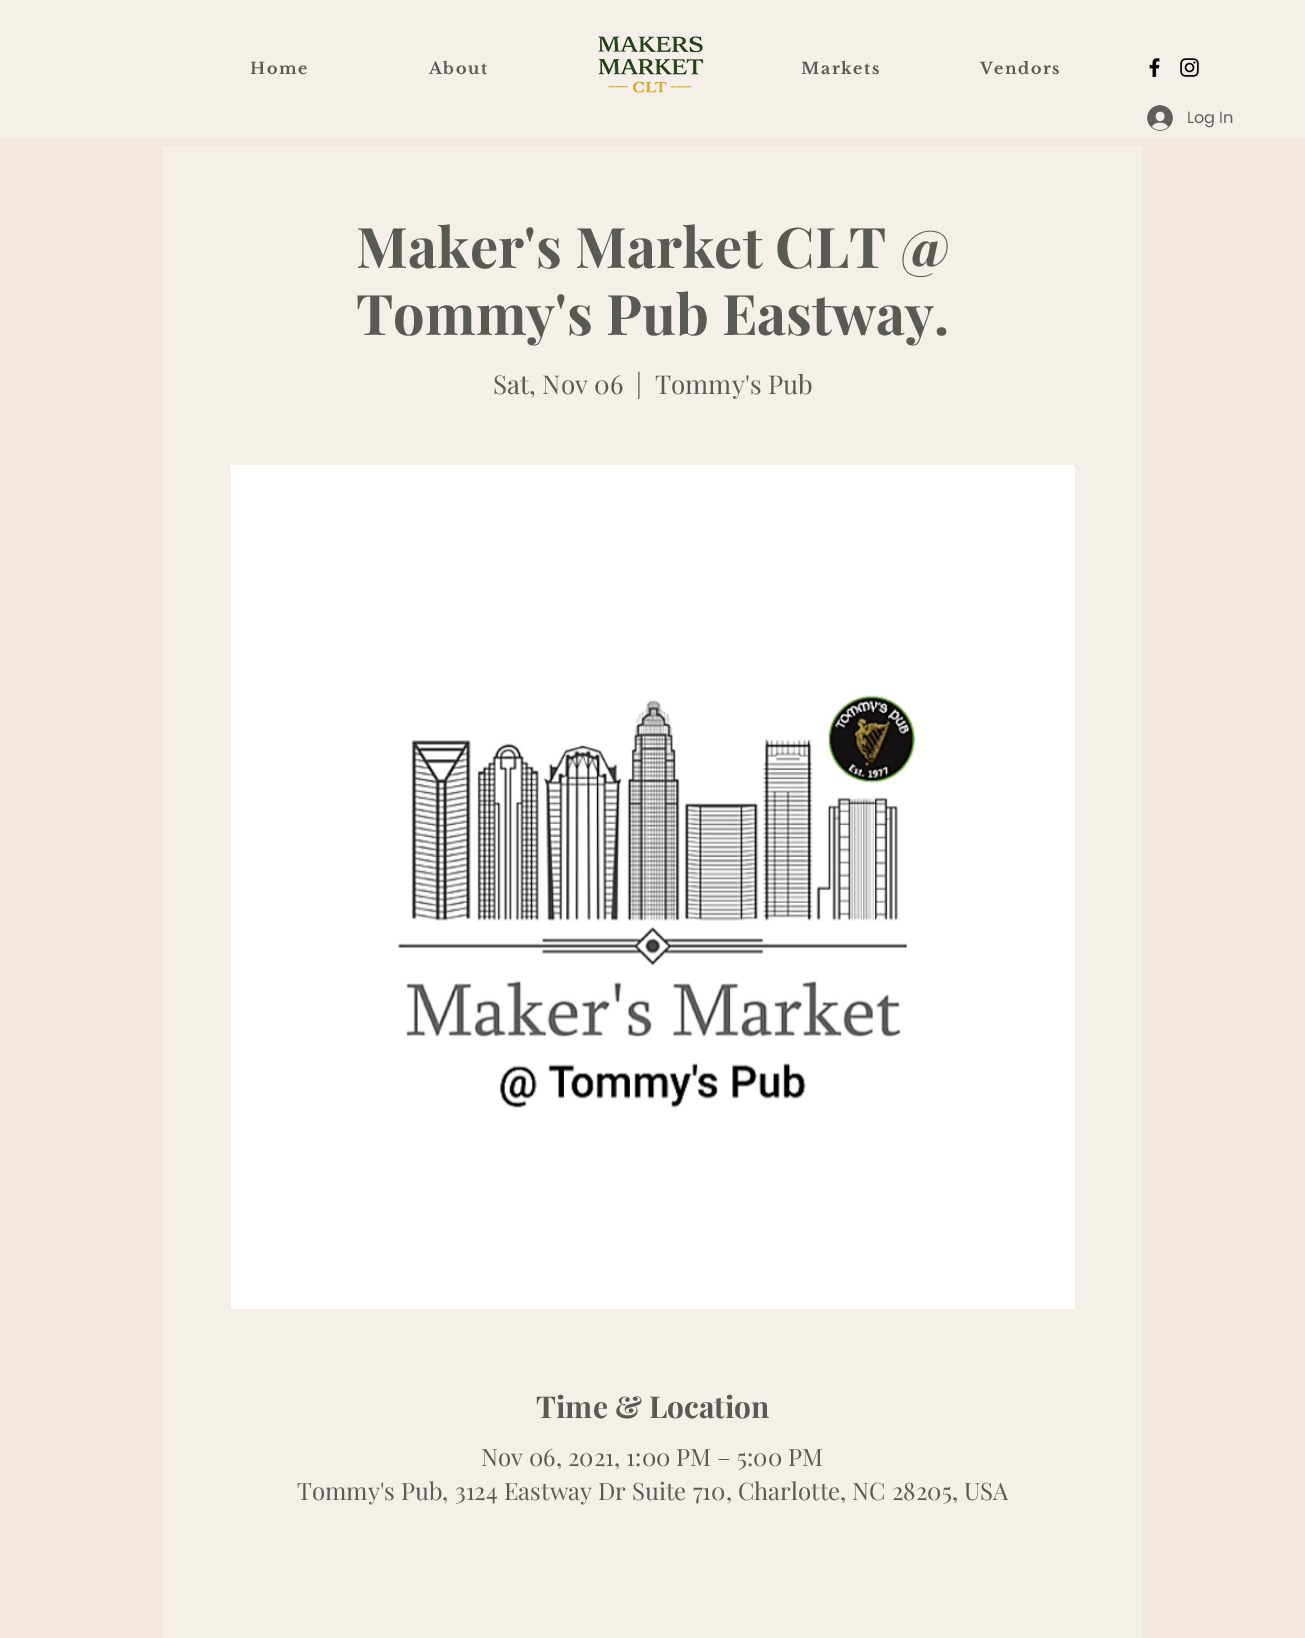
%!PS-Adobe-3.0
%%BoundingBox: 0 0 1305 1638
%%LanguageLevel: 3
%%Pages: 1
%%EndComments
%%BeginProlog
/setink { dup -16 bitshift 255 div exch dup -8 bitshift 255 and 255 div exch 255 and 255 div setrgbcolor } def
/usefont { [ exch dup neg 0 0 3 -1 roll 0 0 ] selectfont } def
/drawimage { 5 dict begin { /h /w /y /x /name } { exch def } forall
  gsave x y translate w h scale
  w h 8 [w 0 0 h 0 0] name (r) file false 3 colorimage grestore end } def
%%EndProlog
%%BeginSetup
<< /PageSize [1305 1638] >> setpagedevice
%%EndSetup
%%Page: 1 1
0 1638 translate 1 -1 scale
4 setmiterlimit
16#F4EFE9 setink
0 0 1305 1638 rectfill
/LibreBaskerville-Bold 16 usefont
16#5A5A55 setink
250 74 moveto 1.5 0 (Home) ashow
429 74 moveto 1.5 0 (About) ashow
(img1.raw) 598 36 106 57 drawimage
801 74 moveto 1.5 0 (Markets) ashow
980 74 moveto 1.5 0 (Vendors) ashow
(img2.raw) 1149 58 11 20 drawimage
(img3.raw) 1180 58 19 19 drawimage
(img4.raw) 1147 105 26 26 drawimage
/Poppins-Regular 16 usefont
16#605F5B setink
1187 123 moveto (Log In) show
16#F1E7DE setink
0 138 1305 1500 rectfill
16#F4EFE9 setink
163 146 980 1492 rectfill
/PlayfairDisplay-Bold 56 usefont
16#5A5A55 setink
356 268 moveto (Maker's Market CLT @) show
356 335 moveto (Tommy's Pub Eastway.) show
/PlayfairDisplay-Regular 26 usefont
[
    [(Sat, Nov 06) 493 394]
    [(|) 636 394]
    [(Tommy's Pub) 655 394]
] { aload pop moveto show } forall
16#FFFFFE setink
231 465 844 844 rectfill
(img5.raw) 397 695 519 413 drawimage
/PlayfairDisplay-Bold 30 usefont
16#5A5A55 setink
536 1418 moveto (Time & Location) show
/PlayfairDisplay-Regular 24 usefont
481 1466 moveto (Nov 06, 2021, 1:00 PM – 5:00 PM) show
297 1500 moveto (Tommy's Pub, 3124 Eastway Dr Suite 710, Charlotte, NC 28205, USA) show
showpage
%%EOF
